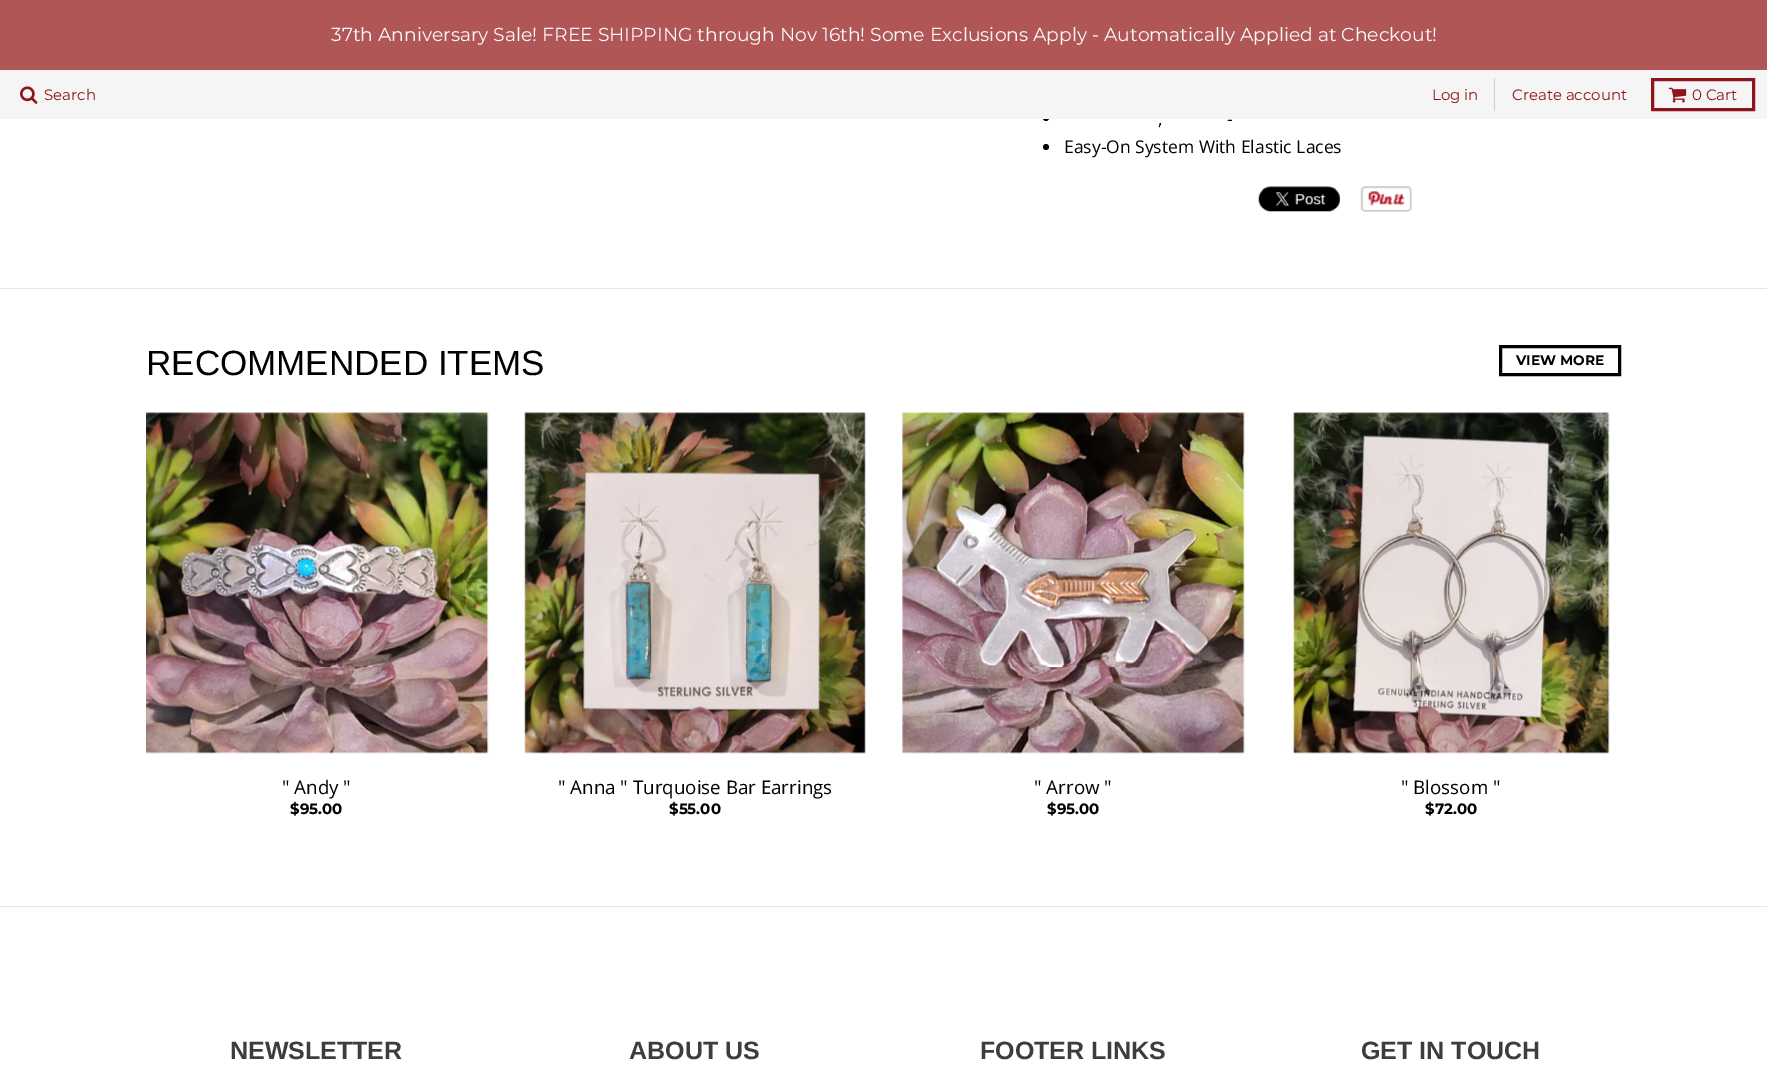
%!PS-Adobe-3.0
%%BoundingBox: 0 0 1767 1067
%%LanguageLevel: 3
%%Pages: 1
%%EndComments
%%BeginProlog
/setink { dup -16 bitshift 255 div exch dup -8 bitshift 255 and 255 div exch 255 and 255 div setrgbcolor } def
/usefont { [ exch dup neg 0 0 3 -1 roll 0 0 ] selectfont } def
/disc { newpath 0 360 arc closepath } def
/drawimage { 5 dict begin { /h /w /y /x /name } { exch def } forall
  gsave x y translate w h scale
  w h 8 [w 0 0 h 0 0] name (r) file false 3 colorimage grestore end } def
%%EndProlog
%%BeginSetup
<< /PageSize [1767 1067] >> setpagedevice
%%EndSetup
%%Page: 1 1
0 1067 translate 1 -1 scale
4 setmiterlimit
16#FFFFFF setink
0 0 1767 1067 rectfill
16#B15656 setink
0 0 1767 70 rectfill
/Montserrat-Regular 18.75 usefont
16#FAF9F9 setink
331 41 moveto (37th Anniversary Sale! FREE SHIPPING through Nov 16th! Some Exclusions Apply - Automatically Applied at Checkout!) show
16#000000 setink
1046 118 3 disc fill
16#F5F5F5 setink
0 70 1767 49 rectfill
(img1.raw) 20 86 18 18 drawimage
/Montserrat-Regular 15 usefont
16#8D151B setink
44 100 moveto (Search) show
16#E0C8C9 setink
1494 78 1 33 rectfill
16#8D151B setink
1432 100 moveto (Log in) show
1512 100 moveto (Create account) show
3 setlinewidth
1652.5 79.5 101 30 rectstroke
(img2.raw) 1668 87 19 16 drawimage
1692 100 moveto (0 Cart) show
16#E5E5E5 setink
0 288 1767 1 rectfill
/OpenSans-Regular 17.5 usefont
16#000000 setink
1227 125 moveto (-) show
1158 125 moveto (,) show
1046 147 3 disc fill
1064 153 moveto (Easy-On System With Elastic Laces) show
(img3.raw) 1258 186 83 26 drawimage
(img4.raw) 1360 186 52 26 drawimage
16#E5E5E5 setink
0 906 1767 1 rectfill
/LiberationSans-Regular 35 usefont
16#000000 setink
146 375 moveto (RECOMMENDED ITEMS) show
1500.5 346.5 119 28 rectstroke
/Montserrat-Bold 13.75 usefont
1516 365 moveto (VIEW MORE) show
(img5.raw) 146 412 343 342 drawimage
/OpenSans-Regular 18.75 usefont
282 794 moveto (" Andy ") show
/Montserrat-Bold 15 usefont
290 814 moveto ($95.00) show
(img6.raw) 524 412 342 342 drawimage
/OpenSans-Regular 18.75 usefont
558 794 moveto (" Anna " Turquoise Bar Earrings) show
/Montserrat-Bold 15 usefont
669 814 moveto ($55.00) show
(img7.raw) 902 412 343 342 drawimage
/OpenSans-Regular 18.75 usefont
1034 794 moveto (" Arrow ") show
/Montserrat-Bold 15 usefont
1047 814 moveto ($95.00) show
(img8.raw) 1293 412 317 342 drawimage
/OpenSans-Regular 18.75 usefont
1401 794 moveto (" Blossom ") show
/Montserrat-Bold 15 usefont
1425 814 moveto ($72.00) show
/LiberationSans-Bold 25 usefont
16#3F3C3C setink
[
    [(NEWSLETTER) 230 1059]
    [(ABOUT US) 629 1059]
    [(FOOTER LINKS) 980 1059]
    [(GET IN TOUCH) 1361 1059]
] { aload pop moveto show } forall
showpage
%%EOF
